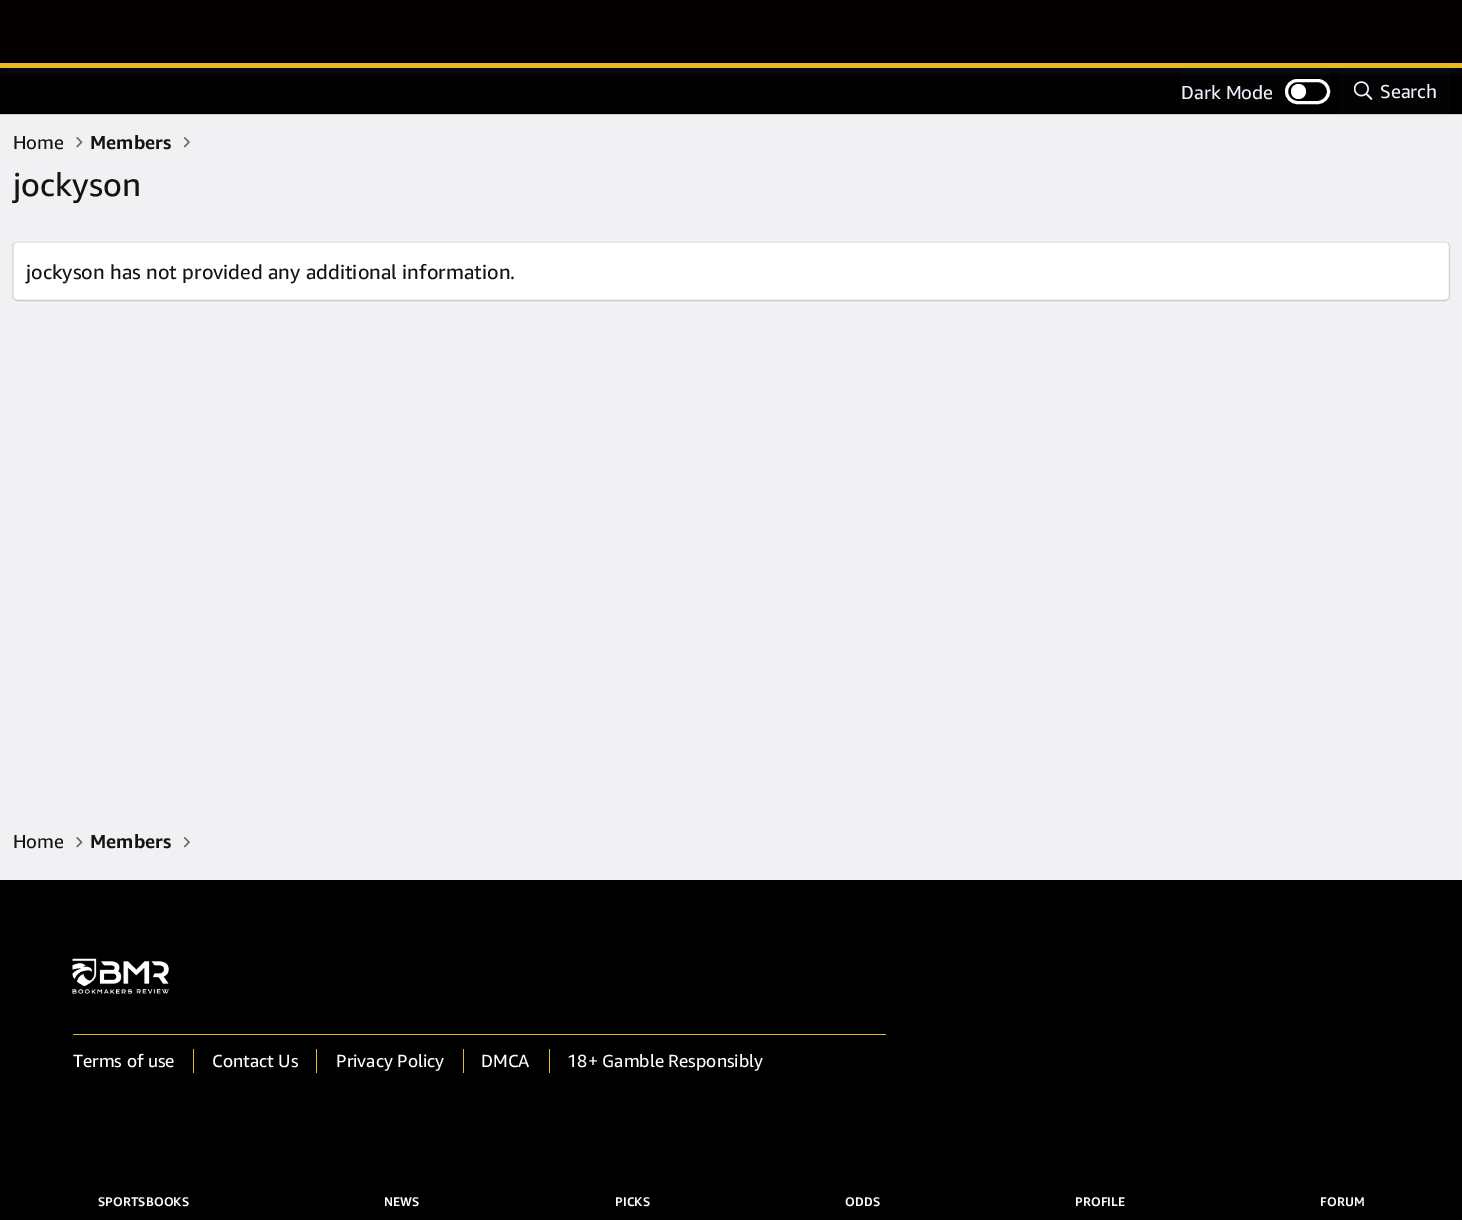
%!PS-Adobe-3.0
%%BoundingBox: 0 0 1462 1220
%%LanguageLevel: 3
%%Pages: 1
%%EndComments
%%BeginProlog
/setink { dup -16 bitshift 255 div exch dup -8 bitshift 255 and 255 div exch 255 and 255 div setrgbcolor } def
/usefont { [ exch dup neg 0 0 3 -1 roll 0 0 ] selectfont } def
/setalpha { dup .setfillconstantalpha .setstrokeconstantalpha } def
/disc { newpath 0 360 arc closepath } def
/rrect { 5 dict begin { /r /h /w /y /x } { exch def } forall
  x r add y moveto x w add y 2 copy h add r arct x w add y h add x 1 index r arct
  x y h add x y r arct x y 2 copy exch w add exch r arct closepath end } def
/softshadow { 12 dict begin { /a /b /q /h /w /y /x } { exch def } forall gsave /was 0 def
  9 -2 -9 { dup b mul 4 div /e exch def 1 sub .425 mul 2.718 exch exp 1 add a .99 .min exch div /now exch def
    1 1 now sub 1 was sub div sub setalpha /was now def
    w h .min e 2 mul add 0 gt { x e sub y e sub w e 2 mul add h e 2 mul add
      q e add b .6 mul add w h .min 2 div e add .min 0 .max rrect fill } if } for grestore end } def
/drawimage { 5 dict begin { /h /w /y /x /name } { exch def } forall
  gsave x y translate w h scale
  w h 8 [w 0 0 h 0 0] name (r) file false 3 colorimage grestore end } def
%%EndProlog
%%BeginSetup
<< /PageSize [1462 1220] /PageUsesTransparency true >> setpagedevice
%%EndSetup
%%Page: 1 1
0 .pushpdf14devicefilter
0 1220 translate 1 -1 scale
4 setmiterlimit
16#F1F1F3 setink
0 0 1462 1220 rectfill
16#000000 setink
0 68 1462 46 rectfill
16#030303 setink
1186 68 moveto 1325 68 lineto 1328 68 1330 70 1330 73 curveto 1330 105 lineto 1181 105 lineto 1181 73 lineto 1181 70 1183 68 1186 68 curveto closepath fill
16#000000 setink
1286.5 80.5 42 22 11 rrect gsave fill grestore
16#FFFFFF setink
3 setlinewidth
stroke
16#030303 setink
1344 68 moveto 1445 68 lineto 1448 68 1450 70 1450 73 curveto 1450 114 lineto 1339 114 lineto 1339 73 lineto 1339 70 1341 68 1344 68 curveto closepath fill
(img1.raw) 1354 81 19 19 drawimage
16#697785 setink
0 5 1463 68 0 2.5 0.1 softshadow
16#020100 setink
0 0 1462 63 rectfill
16#E8B923 setink
0 63 1462 5 rectfill
/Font-Regular 18.75 usefont
16#EDF3FD setink
1181 99 moveto (Dark Mode) show
16#FFFFFF setink
1298.5 91.5 7.5 disc fill
16#EDF3FD setink
1380 98 moveto (Search) show
16#CCCCCC setink
0 114 1462 1 rectfill
16#141414 setink
13 149 moveto (Home) show
(img2.raw) 76 137 7 11 drawimage
/Font-Bold 18.75 usefont
90 149 moveto (Members) show
(img3.raw) 184 137 6 11 drawimage
/Font-Regular 32.5 usefont
13 196 moveto (jockyson) show
16#FFFFFF setink
13 241 1437 60 5 rrect fill
16#E0E0E0 setink
1.2 setlinewidth
14.5 243 moveto 17.5 242 lineto 1445 242 lineto 1448 243 lineto stroke
16#D6D6D6 setink
1448 243 moveto 1449 244 1449.5 245 1449.5 246 curveto 1449.5 296 lineto 1449.5 297.5 1449 298.5 1448 299.5 curveto stroke
16#CCCCCC setink
1448 299.5 moveto 1445 300.5 lineto 17.5 300.5 lineto 14.5 299.5 lineto stroke
16#D6D6D6 setink
14.5 299.5 moveto 13.5 298.5 13 297.5 13 296 curveto 13 246 lineto 13 245 13.5 244 14.5 243 curveto stroke
/Font-Regular 20 usefont
16#141414 setink
26 279 moveto (jockyson has not provided any additional information.) show
/Font-Regular 18.75 usefont
13 848 moveto (Home) show
(img2.raw) 76 837 7 11 drawimage
/Font-Bold 18.75 usefont
90 848 moveto (Members) show
(img3.raw) 184 837 6 11 drawimage
16#000000 setink
0 880 1462 340 rectfill
(img4.raw) 72 958 97 36 drawimage
16#E8B923 setink
73 1034 813 1 rectfill
193 1049 1 24 rectfill
/Font-Regular 17.5 usefont
16#FFFFFF setink
73 1067 moveto (Terms of use) show
16#E8B923 setink
316 1049 1 24 rectfill
16#FFFFFF setink
212 1067 moveto (Contact Us) show
16#E8B923 setink
463 1049 1 24 rectfill
16#FFFFFF setink
336 1067 moveto (Privacy Policy) show
16#E8B923 setink
549 1049 1 24 rectfill
16#FFFFFF setink
481 1067 moveto (DMCA) show
567 1067 moveto (18+ Gamble Responsibly) show
/Font-SemiBold 12.5 usefont
98 1206 moveto 0.1 0 (SPORTSBOOKS) ashow
384 1206 moveto 0.1 0 (NEWS) ashow
615 1206 moveto 0.1 0 (PICKS) ashow
845 1206 moveto 0.1 0 (ODDS) ashow
1075 1206 moveto 0.1 0 (PROFILE) ashow
1320 1206 moveto 0.1 0 (FORUM) ashow
.poppdf14devicefilter showpage
%%EOF
